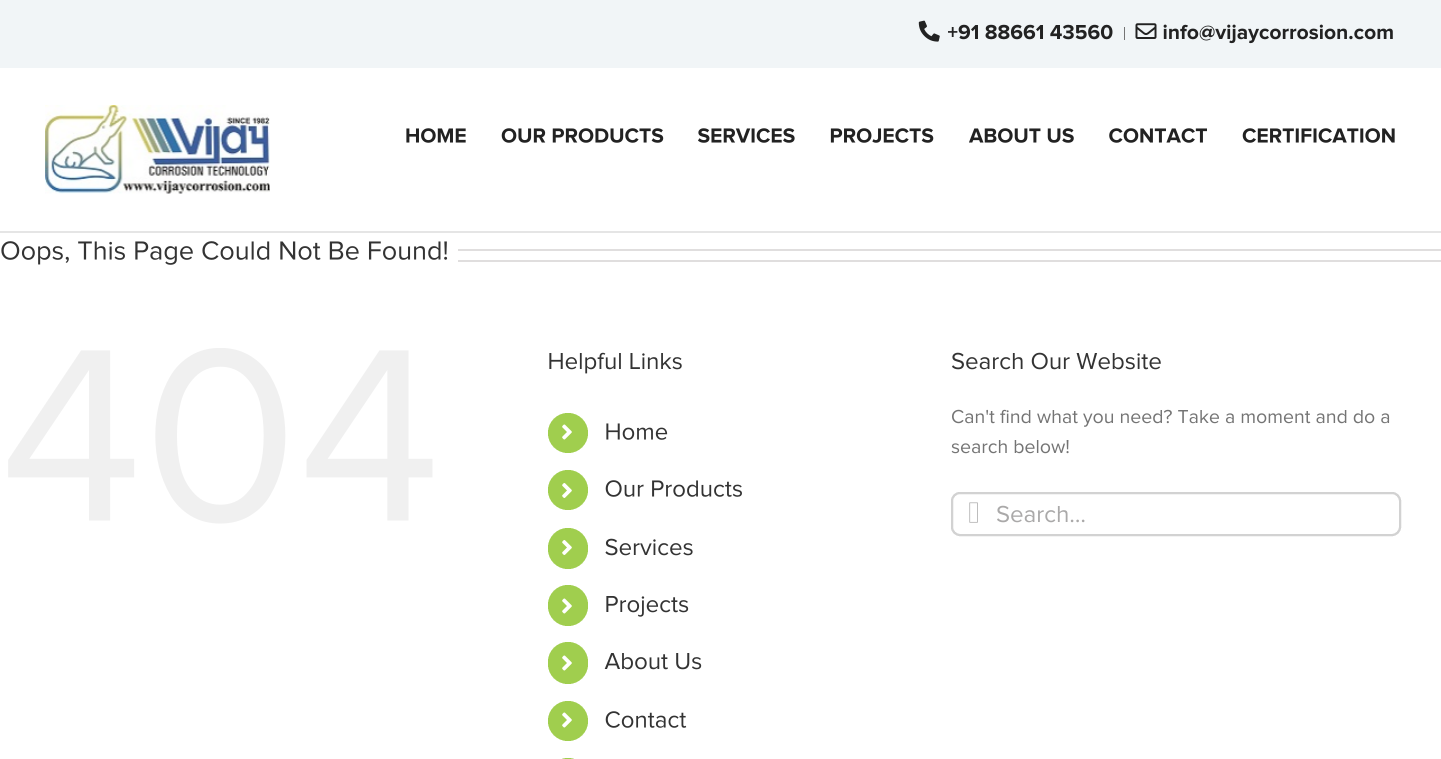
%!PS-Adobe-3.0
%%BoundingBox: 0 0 1441 759
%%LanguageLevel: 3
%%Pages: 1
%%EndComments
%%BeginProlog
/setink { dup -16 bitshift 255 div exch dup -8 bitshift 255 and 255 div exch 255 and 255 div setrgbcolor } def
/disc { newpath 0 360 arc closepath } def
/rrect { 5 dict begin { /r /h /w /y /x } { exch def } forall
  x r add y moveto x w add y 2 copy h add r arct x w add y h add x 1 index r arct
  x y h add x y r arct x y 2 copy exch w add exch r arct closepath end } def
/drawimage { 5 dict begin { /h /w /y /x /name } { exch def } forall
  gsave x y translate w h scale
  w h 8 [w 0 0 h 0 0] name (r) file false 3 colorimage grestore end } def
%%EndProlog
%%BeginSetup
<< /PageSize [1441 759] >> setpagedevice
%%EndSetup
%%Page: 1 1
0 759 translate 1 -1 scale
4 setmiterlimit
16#FFFFFF setink
0 0 1441 759 rectfill
16#F1F5F7 setink
0 0 1441 68 rectfill
(img1.raw) 918 20 22 22 drawimage
(img2.raw) 948 24 165 16 drawimage
16#747474 setink
1124 27 1 13 rectfill
(img3.raw) 1135 23 22 16 drawimage
(img4.raw) 1163 24 230 20 drawimage
16#E5E5E5 setink
0 231 1441 2 rectfill
(img5.raw) 45 105 225 89 drawimage
(img6.raw) 406 128 60 15 drawimage
(img7.raw) 501 128 163 15 drawimage
(img8.raw) 698 128 97 15 drawimage
(img9.raw) 830 128 104 15 drawimage
(img10.raw) 969 128 105 15 drawimage
(img11.raw) 1109 128 98 15 drawimage
(img12.raw) 1242 128 153 15 drawimage
(img13.raw) 1 241 447 24 drawimage
16#E0DEDE setink
458 249 983 2 rectfill
458 260 983 2 rectfill
(img14.raw) 8 348 425 176 drawimage
(img15.raw) 549 352 133 22 drawimage
16#A0CE4E setink
568 433 20 disc fill
(img16.raw) 562 424 10 16 drawimage
(img17.raw) 606 423 62 17 drawimage
568 490 20 disc fill
(img18.raw) 562 483 10 15 drawimage
(img19.raw) 605 480 137 17 drawimage
548 528 40 41 20 rrect fill
(img18.raw) 562 540 10 15 drawimage
(img20.raw) 605 538 88 18 drawimage
548 585 40 41 20 rrect fill
(img16.raw) 562 598 10 16 drawimage
(img21.raw) 606 596 83 21 drawimage
548 642 40 42 20 rrect fill
(img16.raw) 562 655 10 16 drawimage
(img22.raw) 604 653 98 17 drawimage
568 721 20 disc fill
(img16.raw) 562 712 10 16 drawimage
(img23.raw) 605 711 82 17 drawimage
548 758 40 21 20 rrect fill
(img24.raw) 952 352 209 18 drawimage
(img25.raw) 952 409 438 18 drawimage
(img26.raw) 951 440 118 14 drawimage
16#D2D2D2 setink
2 setlinewidth
952 493 448 42 8 rrect stroke
(img27.raw) 997 505 88 18 drawimage
(img28.raw) 969 502 9 21 drawimage
showpage
%%EOF
